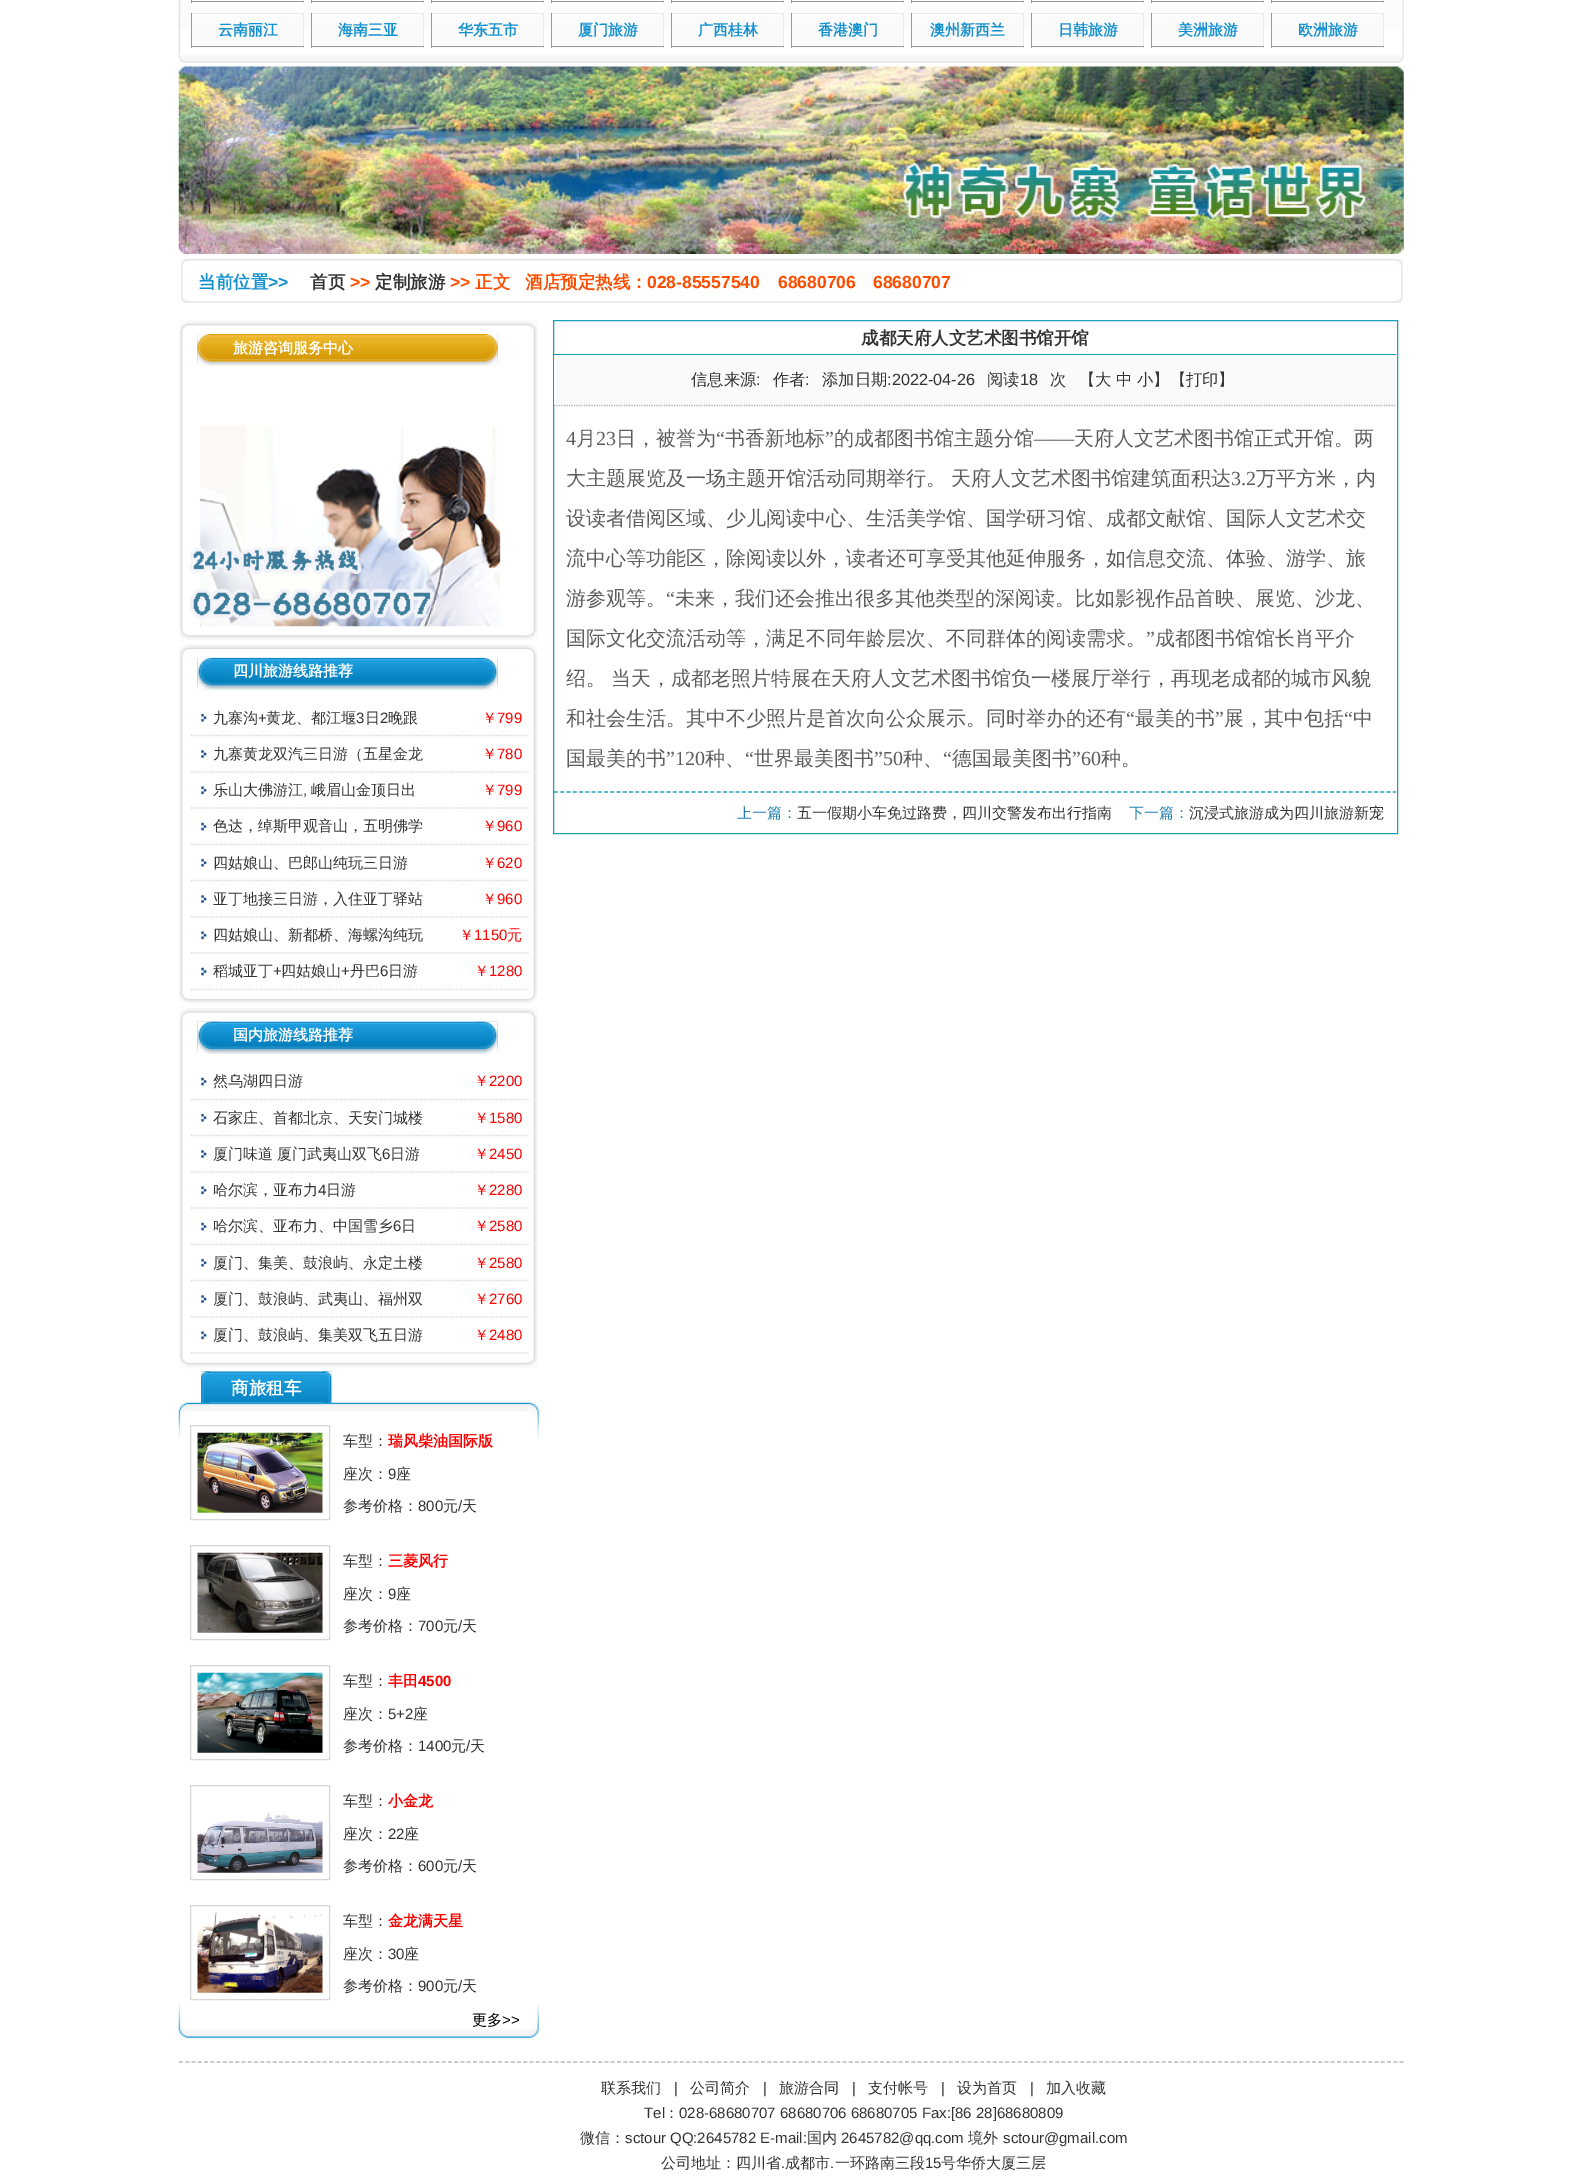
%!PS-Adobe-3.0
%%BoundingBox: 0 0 1584 2179
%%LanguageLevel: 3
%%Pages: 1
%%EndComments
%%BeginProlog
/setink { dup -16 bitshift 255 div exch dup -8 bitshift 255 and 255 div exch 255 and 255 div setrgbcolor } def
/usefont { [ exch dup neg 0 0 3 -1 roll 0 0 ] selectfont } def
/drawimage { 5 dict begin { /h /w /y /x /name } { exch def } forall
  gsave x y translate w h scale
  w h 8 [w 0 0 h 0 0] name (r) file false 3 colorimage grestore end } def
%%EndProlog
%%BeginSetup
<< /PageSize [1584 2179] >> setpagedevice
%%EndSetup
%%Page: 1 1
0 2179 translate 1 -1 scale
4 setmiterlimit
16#FFFFFF setink
0 0 1584 2179 rectfill
(img1.raw) 178 0 1226 54 drawimage
(img2.raw) 178 55 1226 8 drawimage
[
    [303 0 1 3 16#E9E9E9]
    [191 1 113 1 16#999999]
    [191 0 1 3 16#999999]
    [423 0 1 3 16#E9E9E9]
    [311 1 113 1 16#999999]
    [311 0 1 3 16#999999]
    [543 0 1 3 16#E9E9E9]
    [431 1 113 1 16#999999]
    [431 0 1 3 16#999999]
    [663 0 1 3 16#E9E9E9]
    [551 1 113 1 16#999999]
    [551 0 1 3 16#999999]
    [783 0 1 3 16#E9E9E9]
    [671 1 113 1 16#999999]
    [671 0 1 3 16#999999]
    [903 0 1 3 16#E9E9E9]
    [791 1 113 1 16#999999]
    [791 0 1 3 16#999999]
    [1023 0 1 3 16#E9E9E9]
    [911 1 113 1 16#999999]
    [911 0 1 3 16#999999]
    [1143 0 1 3 16#E9E9E9]
    [1031 1 113 1 16#999999]
    [1031 0 1 3 16#999999]
    [1263 0 1 3 16#E9E9E9]
    [1151 1 113 1 16#999999]
    [1151 0 1 3 16#999999]
    [1383 0 1 3 16#E9E9E9]
    [1271 1 113 1 16#999999]
    [1271 0 1 3 16#999999]
    [192 29 111 19 16#FAFAFA]
    [191 13 113 1 16#E9E9E9]
    [303 13 1 35 16#E9E9E9]
    [191 46 113 1 16#999999]
    [191 13 1 35 16#999999]
] { aload pop setink rectfill } forall
/WenQuanYiZenHei-Bold 15 usefont
16#1290D0 setink
218 35 moveto (云南丽江) show
[
    [312 29 111 19 16#FAFAFA]
    [311 13 113 1 16#E9E9E9]
    [423 13 1 35 16#E9E9E9]
    [311 46 113 1 16#999999]
    [311 13 1 35 16#999999]
] { aload pop setink rectfill } forall
16#1290D0 setink
338 35 moveto (海南三亚) show
[
    [432 29 111 19 16#FAFAFA]
    [431 13 113 1 16#E9E9E9]
    [543 13 1 35 16#E9E9E9]
    [431 46 113 1 16#999999]
    [431 13 1 35 16#999999]
] { aload pop setink rectfill } forall
16#1290D0 setink
458 35 moveto (华东五市) show
[
    [552 29 111 19 16#FAFAFA]
    [551 13 113 1 16#E9E9E9]
    [663 13 1 35 16#E9E9E9]
    [551 46 113 1 16#999999]
    [551 13 1 35 16#999999]
] { aload pop setink rectfill } forall
16#1290D0 setink
578 35 moveto (厦门旅游) show
[
    [672 29 111 19 16#FAFAFA]
    [671 13 113 1 16#E9E9E9]
    [783 13 1 35 16#E9E9E9]
    [671 46 113 1 16#999999]
    [671 13 1 35 16#999999]
] { aload pop setink rectfill } forall
16#1290D0 setink
698 35 moveto (广西桂林) show
[
    [792 29 111 19 16#FAFAFA]
    [791 13 113 1 16#E9E9E9]
    [903 13 1 35 16#E9E9E9]
    [791 46 113 1 16#999999]
    [791 13 1 35 16#999999]
] { aload pop setink rectfill } forall
16#1290D0 setink
818 35 moveto (香港澳门) show
[
    [912 29 111 19 16#FAFAFA]
    [911 13 113 1 16#E9E9E9]
    [1023 13 1 35 16#E9E9E9]
    [911 46 113 1 16#999999]
    [911 13 1 35 16#999999]
] { aload pop setink rectfill } forall
16#1290D0 setink
930 35 moveto (澳州新西兰) show
[
    [1032 29 111 19 16#FAFAFA]
    [1031 13 113 1 16#E9E9E9]
    [1143 13 1 35 16#E9E9E9]
    [1031 46 113 1 16#999999]
    [1031 13 1 35 16#999999]
] { aload pop setink rectfill } forall
16#1290D0 setink
1058 35 moveto (日韩旅游) show
[
    [1152 29 111 19 16#FAFAFA]
    [1151 13 113 1 16#E9E9E9]
    [1263 13 1 35 16#E9E9E9]
    [1151 46 113 1 16#999999]
    [1151 13 1 35 16#999999]
] { aload pop setink rectfill } forall
16#1290D0 setink
1178 35 moveto (美洲旅游) show
[
    [1272 29 111 19 16#FAFAFA]
    [1271 13 113 1 16#E9E9E9]
    [1383 13 1 35 16#E9E9E9]
    [1271 46 113 1 16#999999]
    [1271 13 1 35 16#999999]
] { aload pop setink rectfill } forall
16#1290D0 setink
1298 35 moveto (欧洲旅游) show
(img3.raw) 178 66 1226 188 drawimage
(img4.raw) 181 259 1223 44 drawimage
/WenQuanYiZenHei-Bold 17.5 usefont
198 288 moveto (当前位置) show
/LiberationSans-Bold 17.5 usefont
268 288 moveto (>>) show
/WenQuanYiZenHei-Bold 17.5 usefont
16#333333 setink
310 288 moveto (首页) show
/LiberationSans-Bold 17.5 usefont
16#FF4D00 setink
350 288 moveto (>>) show
/WenQuanYiZenHei-Bold 17.5 usefont
16#333333 setink
375 288 moveto (定制旅游) show
/LiberationSans-Bold 17.5 usefont
16#FF4D00 setink
450 288 moveto (>>) show
/WenQuanYiZenHei-Bold 17.5 usefont
475 288 moveto (正文) show
525 288 moveto (酒店预定热线：) show
/LiberationSans-Bold 17.5 usefont
[
    [(028-85557540) 647 288]
    [(68680706) 778 288]
    [(68680707) 873 288]
] { aload pop moveto show } forall
(img5.raw) 179 320 359 321 drawimage
(img6.raw) 179 320 359 10 drawimage
(img7.raw) 197 334 301 32 drawimage
(img8.raw) 197 334 14 32 drawimage
/WenQuanYiZenHei-Bold 15 usefont
16#FFFFFF setink
233 353 moveto (旅游咨询服务中心) show
(img9.raw) 484 334 14 32 drawimage
(img10.raw) 190 426 311 201 drawimage
(img11.raw) 179 626 359 14 drawimage
(img12.raw) 179 657 359 337 drawimage
(img14.raw) 197 657 301 34 drawimage
(img15.raw) 197 657 22 33 drawimage
(img16.raw) 476 657 22 33 drawimage
(img13.raw) 179 644 359 14 drawimage
233 676 moveto (四川旅游线路推荐) show
(img17.raw) 201 713 6 9 drawimage
16#DADADA setink
1.2 setlinewidth
[1.25 1.25] 0 setdash
191 735.5 moveto 529 735.5 lineto stroke
/WenQuanYiZenHei-Medium 15 usefont
16#333333 setink
213 723 moveto (九寨沟) show
/LiberationSans-Regular 15 usefont
258 723 moveto (+) show
/WenQuanYiZenHei-Medium 15 usefont
266 723 moveto (黄龙、都江堰) show
/LiberationSans-Regular 15 usefont
356 723 moveto (3) show
/WenQuanYiZenHei-Medium 15 usefont
365 723 moveto (日) show
/LiberationSans-Regular 15 usefont
380 723 moveto (2) show
/WenQuanYiZenHei-Medium 15 usefont
388 723 moveto (晚跟) show
16#FF0000 setink
482 723 moveto (￥) show
/LiberationSans-Regular 15 usefont
497 723 moveto (799) show
(img18.raw) 201 750 6 8 drawimage
16#DADADA setink
191 772 moveto 529 772 lineto stroke
/WenQuanYiZenHei-Medium 15 usefont
16#333333 setink
213 759 moveto (九寨黄龙双汽三日游（五星金龙) show
16#FF0000 setink
482 759 moveto (￥) show
/LiberationSans-Regular 15 usefont
497 759 moveto (780) show
(img19.raw) 201 786 6 9 drawimage
16#DADADA setink
191 808 moveto 529 808 lineto stroke
/WenQuanYiZenHei-Medium 15 usefont
16#333333 setink
213 795 moveto (乐山大佛游江) show
/LiberationSans-Regular 15 usefont
303 795 moveto (,) show
/WenQuanYiZenHei-Medium 15 usefont
311 795 moveto (峨眉山金顶日出) show
16#FF0000 setink
482 795 moveto (￥) show
/LiberationSans-Regular 15 usefont
497 795 moveto (799) show
(img20.raw) 201 822 6 9 drawimage
16#DADADA setink
191 844.5 moveto 529 844.5 lineto stroke
/WenQuanYiZenHei-Medium 15 usefont
16#333333 setink
213 831 moveto (色达，绰斯甲观音山，五明佛学) show
16#FF0000 setink
482 831 moveto (￥) show
/LiberationSans-Regular 15 usefont
497 831 moveto (960) show
(img17.raw) 201 858 6 9 drawimage
16#DADADA setink
191 880.5 moveto 529 880.5 lineto stroke
/WenQuanYiZenHei-Medium 15 usefont
16#333333 setink
213 868 moveto (四姑娘山、巴郎山纯玩三日游) show
16#FF0000 setink
482 868 moveto (￥) show
/LiberationSans-Regular 15 usefont
497 868 moveto (620) show
(img18.raw) 201 895 6 8 drawimage
16#DADADA setink
191 917 moveto 529 917 lineto stroke
/WenQuanYiZenHei-Medium 15 usefont
16#333333 setink
213 904 moveto (亚丁地接三日游，入住亚丁驿站) show
16#FF0000 setink
482 904 moveto (￥) show
/LiberationSans-Regular 15 usefont
497 904 moveto (960) show
(img19.raw) 201 931 6 9 drawimage
16#DADADA setink
191 953 moveto 529 953 lineto stroke
/WenQuanYiZenHei-Medium 15 usefont
16#333333 setink
213 940 moveto (四姑娘山、新都桥、海螺沟纯玩) show
16#FF0000 setink
459 940 moveto (￥) show
/LiberationSans-Regular 15 usefont
474 940 moveto (1150) show
/WenQuanYiZenHei-Medium 15 usefont
507 940 moveto (元) show
(img21.raw) 201 967 6 9 drawimage
16#DADADA setink
191 989.5 moveto 529 989.5 lineto stroke
16#333333 setink
213 976 moveto (稻城亚丁) show
/LiberationSans-Regular 15 usefont
273 976 moveto (+) show
/WenQuanYiZenHei-Medium 15 usefont
281 976 moveto (四姑娘山) show
/LiberationSans-Regular 15 usefont
341 976 moveto (+) show
/WenQuanYiZenHei-Medium 15 usefont
350 976 moveto (丹巴) show
/LiberationSans-Regular 15 usefont
380 976 moveto (6) show
/WenQuanYiZenHei-Medium 15 usefont
388 976 moveto (日游) show
16#FF0000 setink
474 976 moveto (￥) show
/LiberationSans-Regular 15 usefont
489 976 moveto (1280) show
(img22.raw) 179 994 359 10 drawimage
(img23.raw) 179 1007 359 361 drawimage
(img25.raw) 197 1021 301 33 drawimage
(img26.raw) 197 1021 22 33 drawimage
(img27.raw) 476 1021 22 33 drawimage
(img24.raw) 179 1008 359 14 drawimage
/WenQuanYiZenHei-Bold 15 usefont
16#FFFFFF setink
233 1040 moveto (国内旅游线路推荐) show
(img21.raw) 201 1077 6 9 drawimage
16#DADADA setink
191 1099.5 moveto 529 1099.5 lineto stroke
/WenQuanYiZenHei-Medium 15 usefont
16#333333 setink
213 1086 moveto (然乌湖四日游) show
16#FF0000 setink
474 1086 moveto (￥) show
/LiberationSans-Regular 15 usefont
489 1086 moveto (2200) show
(img17.raw) 201 1113 6 9 drawimage
16#DADADA setink
191 1135.5 moveto 529 1135.5 lineto stroke
/WenQuanYiZenHei-Medium 15 usefont
16#333333 setink
213 1123 moveto (石家庄、首都北京、天安门城楼) show
16#FF0000 setink
474 1123 moveto (￥) show
/LiberationSans-Regular 15 usefont
489 1123 moveto (1580) show
(img18.raw) 201 1150 6 8 drawimage
16#DADADA setink
191 1172 moveto 529 1172 lineto stroke
/WenQuanYiZenHei-Medium 15 usefont
16#333333 setink
213 1159 moveto (厦门味道 厦门武夷山双飞) show
/LiberationSans-Regular 15 usefont
382 1159 moveto (6) show
/WenQuanYiZenHei-Medium 15 usefont
390 1159 moveto (日游) show
16#FF0000 setink
474 1159 moveto (￥) show
/LiberationSans-Regular 15 usefont
489 1159 moveto (2450) show
(img19.raw) 201 1186 6 9 drawimage
16#DADADA setink
191 1208 moveto 529 1208 lineto stroke
/WenQuanYiZenHei-Medium 15 usefont
16#333333 setink
213 1195 moveto (哈尔滨，亚布力) show
/LiberationSans-Regular 15 usefont
318 1195 moveto (4) show
/WenQuanYiZenHei-Medium 15 usefont
326 1195 moveto (日游) show
16#FF0000 setink
474 1195 moveto (￥) show
/LiberationSans-Regular 15 usefont
489 1195 moveto (2280) show
(img21.raw) 201 1222 6 9 drawimage
16#DADADA setink
191 1244.5 moveto 529 1244.5 lineto stroke
/WenQuanYiZenHei-Medium 15 usefont
16#333333 setink
213 1231 moveto (哈尔滨、亚布力、中国雪乡) show
/LiberationSans-Regular 15 usefont
393 1231 moveto (6) show
/WenQuanYiZenHei-Medium 15 usefont
401 1231 moveto (日) show
16#FF0000 setink
474 1231 moveto (￥) show
/LiberationSans-Regular 15 usefont
489 1231 moveto (2580) show
(img17.raw) 201 1258 6 9 drawimage
16#DADADA setink
191 1280.5 moveto 529 1280.5 lineto stroke
/WenQuanYiZenHei-Medium 15 usefont
16#333333 setink
213 1268 moveto (厦门、集美、鼓浪屿、永定土楼) show
16#FF0000 setink
474 1268 moveto (￥) show
/LiberationSans-Regular 15 usefont
489 1268 moveto (2580) show
(img18.raw) 201 1295 6 8 drawimage
16#DADADA setink
191 1317 moveto 529 1317 lineto stroke
/WenQuanYiZenHei-Medium 15 usefont
16#333333 setink
213 1304 moveto (厦门、鼓浪屿、武夷山、福州双) show
16#FF0000 setink
474 1304 moveto (￥) show
/LiberationSans-Regular 15 usefont
489 1304 moveto (2760) show
(img19.raw) 201 1331 6 9 drawimage
16#DADADA setink
191 1353 moveto 529 1353 lineto stroke
/WenQuanYiZenHei-Medium 15 usefont
16#333333 setink
213 1340 moveto (厦门、鼓浪屿、集美双飞五日游) show
16#FF0000 setink
474 1340 moveto (￥) show
/LiberationSans-Regular 15 usefont
489 1340 moveto (2480) show
(img28.raw) 179 1358 359 10 drawimage
(img29.raw) 201 1371 131 32 drawimage
(img30.raw) 201 1371 9 32 drawimage
/WenQuanYiZenHei-Bold 17.5 usefont
16#FFFFFF setink
231 1394 moveto (商旅租车) show
(img31.raw) 322 1371 10 32 drawimage
(img32.raw) 178 1402 361 37 drawimage
16#D7D7D7 setink
1 setlinewidth
[] 0 setdash
190.5 1425.5 139 94 rectstroke
(img33.raw) 197 1432 126 81 drawimage
/WenQuanYiZenHei-Medium 15 usefont
16#333333 setink
343 1446 moveto (车型：) show
/WenQuanYiZenHei-Bold 15 usefont
16#FF0000 setink
388 1446 moveto (瑞风柴油国际版) show
/WenQuanYiZenHei-Medium 15 usefont
16#333333 setink
343 1479 moveto (座次：) show
/LiberationSans-Regular 15 usefont
388 1479 moveto (9) show
/WenQuanYiZenHei-Medium 15 usefont
396 1479 moveto (座) show
343 1511 moveto (参考价格：) show
/LiberationSans-Regular 15 usefont
418 1511 moveto (800) show
/WenQuanYiZenHei-Medium 15 usefont
443 1511 moveto (元) show
/LiberationSans-Regular 15 usefont
458 1511 moveto (/) show
/WenQuanYiZenHei-Medium 15 usefont
462 1511 moveto (天) show
16#D7D7D7 setink
190.5 1545.5 139 94 rectstroke
(img34.raw) 197 1552 126 81 drawimage
16#333333 setink
343 1566 moveto (车型：) show
/WenQuanYiZenHei-Bold 15 usefont
16#FF0000 setink
388 1566 moveto (三菱风行) show
/WenQuanYiZenHei-Medium 15 usefont
16#333333 setink
343 1599 moveto (座次：) show
/LiberationSans-Regular 15 usefont
388 1599 moveto (9) show
/WenQuanYiZenHei-Medium 15 usefont
396 1599 moveto (座) show
343 1631 moveto (参考价格：) show
/LiberationSans-Regular 15 usefont
418 1631 moveto (700) show
/WenQuanYiZenHei-Medium 15 usefont
443 1631 moveto (元) show
/LiberationSans-Regular 15 usefont
458 1631 moveto (/) show
/WenQuanYiZenHei-Medium 15 usefont
462 1631 moveto (天) show
16#D7D7D7 setink
190.5 1665.5 139 94 rectstroke
(img35.raw) 197 1672 126 81 drawimage
16#333333 setink
343 1686 moveto (车型：) show
/WenQuanYiZenHei-Bold 15 usefont
16#FF0000 setink
388 1686 moveto (丰田) show
/LiberationSans-Bold 15 usefont
418 1686 moveto (4500) show
/WenQuanYiZenHei-Medium 15 usefont
16#333333 setink
343 1719 moveto (座次：) show
/LiberationSans-Regular 15 usefont
388 1719 moveto (5+2) show
/WenQuanYiZenHei-Medium 15 usefont
413 1719 moveto (座) show
343 1751 moveto (参考价格：) show
/LiberationSans-Regular 15 usefont
418 1751 moveto (1400) show
/WenQuanYiZenHei-Medium 15 usefont
451 1751 moveto (元) show
/LiberationSans-Regular 15 usefont
466 1751 moveto (/) show
/WenQuanYiZenHei-Medium 15 usefont
470 1751 moveto (天) show
16#D7D7D7 setink
190.5 1785.5 139 94 rectstroke
(img36.raw) 197 1811 126 62 drawimage
16#333333 setink
343 1806 moveto (车型：) show
/WenQuanYiZenHei-Bold 15 usefont
16#FF0000 setink
388 1806 moveto (小金龙) show
/WenQuanYiZenHei-Medium 15 usefont
16#333333 setink
343 1839 moveto (座次：) show
/LiberationSans-Regular 15 usefont
388 1839 moveto (22) show
/WenQuanYiZenHei-Medium 15 usefont
404 1839 moveto (座) show
343 1871 moveto (参考价格：) show
/LiberationSans-Regular 15 usefont
418 1871 moveto (600) show
/WenQuanYiZenHei-Medium 15 usefont
443 1871 moveto (元) show
/LiberationSans-Regular 15 usefont
458 1871 moveto (/) show
/WenQuanYiZenHei-Medium 15 usefont
462 1871 moveto (天) show
16#D7D7D7 setink
190.5 1905.5 139 94 rectstroke
(img37.raw) 197 1912 126 81 drawimage
16#333333 setink
343 1926 moveto (车型：) show
/WenQuanYiZenHei-Bold 15 usefont
16#FF0000 setink
388 1926 moveto (金龙满天星) show
/WenQuanYiZenHei-Medium 15 usefont
16#333333 setink
343 1959 moveto (座次：) show
/LiberationSans-Regular 15 usefont
388 1959 moveto (30) show
/WenQuanYiZenHei-Medium 15 usefont
404 1959 moveto (座) show
343 1991 moveto (参考价格：) show
/LiberationSans-Regular 15 usefont
418 1991 moveto (900) show
/WenQuanYiZenHei-Medium 15 usefont
443 1991 moveto (元) show
/LiberationSans-Regular 15 usefont
458 1991 moveto (/) show
/WenQuanYiZenHei-Medium 15 usefont
462 1991 moveto (天) show
(img38.raw) 178 2003 361 35 drawimage
16#000000 setink
472 2025 moveto (更多) show
/LiberationSans-Regular 15 usefont
502 2025 moveto (>>) show
16#1BA0B9 setink
553.5 320.5 844 513 rectstroke
554 354 842 1 rectfill
/WenQuanYiZenHei-Bold 17.5 usefont
16#333333 setink
861 344 moveto (成都天府人文艺术图书馆开馆) show
16#F9FAFC setink
554 355 842 51 rectfill
16#B2B2B2 setink
1.2 setlinewidth
[1.25 1.25] 0 setdash
554 405.5 moveto 1396 405.5 lineto stroke
/WenQuanYiZenHei-Medium 16.25 usefont
16#333333 setink
691 385 moveto (信息来源) show
/LiberationSans-Regular 16.25 usefont
756 385 moveto (:) show
/WenQuanYiZenHei-Medium 16.25 usefont
773 385 moveto (作者) show
/LiberationSans-Regular 16.25 usefont
805 385 moveto (:) show
/WenQuanYiZenHei-Medium 16.25 usefont
822 385 moveto (添加日期) show
/LiberationSans-Regular 16.25 usefont
887 385 moveto (:2022-04-26) show
/WenQuanYiZenHei-Medium 16.25 usefont
987 385 moveto (阅读) show
/LiberationSans-Regular 16.25 usefont
1020 385 moveto (18) show
/WenQuanYiZenHei-Medium 16.25 usefont
[
    [(次) 1050 385]
    [(【大) 1079 385]
    [(中) 1116 385]
    [(小】【打印】) 1137 385]
] { aload pop moveto show } forall
/LiberationSerif-Regular 20 usefont
16#5D5D5D setink
566 445 moveto (4) show
/WenQuanYiZenHei-Medium 20 usefont
576 445 moveto (月) show
/LiberationSerif-Regular 20 usefont
596 445 moveto (23) show
/WenQuanYiZenHei-Medium 20 usefont
616 445 moveto (日，被誉为) show
/LiberationSerif-Regular 20 usefont
716 445 moveto (“) show
/WenQuanYiZenHei-Medium 20 usefont
725 445 moveto (书香新地标) show
/LiberationSerif-Regular 20 usefont
825 445 moveto (”) show
/WenQuanYiZenHei-Medium 20 usefont
834 445 moveto (的成都图书馆主题分馆) show
/LiberationSerif-Regular 20 usefont
1034 445 moveto (——) show
/WenQuanYiZenHei-Medium 20 usefont
[
    [(天府人文艺术图书馆正式开馆。两) 1074 445]
    [(大主题展览及一场主题开馆活动同期举行。) 566 485]
    [(天府人文艺术图书馆建筑面积达) 951 485]
] { aload pop moveto show } forall
/LiberationSerif-Regular 20 usefont
1231 485 moveto (3.2) show
/WenQuanYiZenHei-Medium 20 usefont
[
    [(万平方米，内) 1256 485]
    [(设读者借阅区域、少儿阅读中心、生活美学馆、国学研习馆、成都文献馆、国际人文艺术交) 566 525]
    [(流中心等功能区，除阅读以外，读者还可享受其他延伸服务，如信息交流、体验、游学、旅) 566 565]
    [(游参观等。) 566 605]
] { aload pop moveto show } forall
/LiberationSerif-Regular 20 usefont
666 605 moveto (“) show
/WenQuanYiZenHei-Medium 20 usefont
675 605 moveto (未来，我们还会推出很多其他类型的深阅读。比如影视作品首映、展览、沙龙、) show
566 645 moveto (国际文化交流活动等，满足不同年龄层次、不同群体的阅读需求。) show
/LiberationSerif-Regular 20 usefont
1146 645 moveto (”) show
/WenQuanYiZenHei-Medium 20 usefont
[
    [(成都图书馆馆长肖平介) 1155 645]
    [(绍。) 566 685]
    [(当天，成都老照片特展在天府人文艺术图书馆负一楼展厅举行，再现老成都的城市风貌) 611 685]
    [(和社会生活。其中不少照片是首次向公众展示。同时举办的还有) 566 725]
] { aload pop moveto show } forall
/LiberationSerif-Regular 20 usefont
1126 725 moveto (“) show
/WenQuanYiZenHei-Medium 20 usefont
1135 725 moveto (最美的书) show
/LiberationSerif-Regular 20 usefont
1215 725 moveto (”) show
/WenQuanYiZenHei-Medium 20 usefont
1224 725 moveto (展，其中包括) show
/LiberationSerif-Regular 20 usefont
1344 725 moveto (“) show
/WenQuanYiZenHei-Medium 20 usefont
1353 725 moveto (中) show
566 765 moveto (国最美的书) show
/LiberationSerif-Regular 20 usefont
666 765 moveto (”120) show
/WenQuanYiZenHei-Medium 20 usefont
705 765 moveto (种、) show
/LiberationSerif-Regular 20 usefont
745 765 moveto (“) show
/WenQuanYiZenHei-Medium 20 usefont
754 765 moveto (世界最美图书) show
/LiberationSerif-Regular 20 usefont
874 765 moveto (”50) show
/WenQuanYiZenHei-Medium 20 usefont
903 765 moveto (种、) show
/LiberationSerif-Regular 20 usefont
943 765 moveto (“) show
/WenQuanYiZenHei-Medium 20 usefont
952 765 moveto (德国最美图书) show
/LiberationSerif-Regular 20 usefont
1072 765 moveto (”60) show
/WenQuanYiZenHei-Medium 20 usefont
1101 765 moveto (种。) show
16#1BA0B9 setink
[3.75 2.51] 0 setdash
554 792 moveto 1396 792 lineto stroke
/WenQuanYiZenHei-Medium 15 usefont
16#1D7DAD setink
737 818 moveto (上一篇：) show
16#333333 setink
797 818 moveto (五一假期小车免过路费，四川交警发布出行指南) show
16#1D7DAD setink
1129 818 moveto (下一篇：) show
16#333333 setink
1189 818 moveto (沉浸式旅游成为四川旅游新宠) show
16#B9B9B9 setink
179 2062 moveto 1404 2062 lineto stroke
16#333333 setink
601 2093 moveto (联系我们) show
/LiberationSans-Regular 15 usefont
674 2093 moveto (|) show
/WenQuanYiZenHei-Medium 15 usefont
690 2093 moveto (公司简介) show
/LiberationSans-Regular 15 usefont
763 2093 moveto (|) show
/WenQuanYiZenHei-Medium 15 usefont
779 2093 moveto (旅游合同) show
/LiberationSans-Regular 15 usefont
852 2093 moveto (|) show
/WenQuanYiZenHei-Medium 15 usefont
868 2093 moveto (支付帐号) show
/LiberationSans-Regular 15 usefont
941 2093 moveto (|) show
/WenQuanYiZenHei-Medium 15 usefont
957 2093 moveto (设为首页) show
/LiberationSans-Regular 15 usefont
1030 2093 moveto (|) show
/WenQuanYiZenHei-Medium 15 usefont
1046 2093 moveto (加入收藏) show
/LiberationSans-Regular 15 usefont
644 2118 moveto (Tel) show
/WenQuanYiZenHei-Medium 15 usefont
664 2118 moveto (：) show
/LiberationSans-Regular 15 usefont
679 2118 moveto (028-68680707 68680706 68680705 Fax:[86 28]68680809) show
/WenQuanYiZenHei-Medium 15 usefont
580 2143 moveto (微信：) show
/LiberationSans-Regular 15 usefont
625 2143 moveto (sctour QQ:2645782 E-mail:) show
/WenQuanYiZenHei-Medium 15 usefont
807 2143 moveto (国内) show
/LiberationSans-Regular 15 usefont
841 2143 moveto (2645782@qq.com) show
/WenQuanYiZenHei-Medium 15 usefont
968 2143 moveto (境外) show
/LiberationSans-Regular 15 usefont
1003 2143 moveto (sctour@gmail.com) show
/WenQuanYiZenHei-Medium 15 usefont
661 2168 moveto (公司地址：四川省) show
/LiberationSans-Regular 15 usefont
781 2168 moveto (.) show
/WenQuanYiZenHei-Medium 15 usefont
785 2168 moveto (成都市) show
/LiberationSans-Regular 15 usefont
830 2168 moveto (.) show
/WenQuanYiZenHei-Medium 15 usefont
835 2168 moveto (一环路南三段) show
/LiberationSans-Regular 15 usefont
925 2168 moveto (15) show
/WenQuanYiZenHei-Medium 15 usefont
941 2168 moveto (号华侨大厦三层) show
showpage
%%EOF
